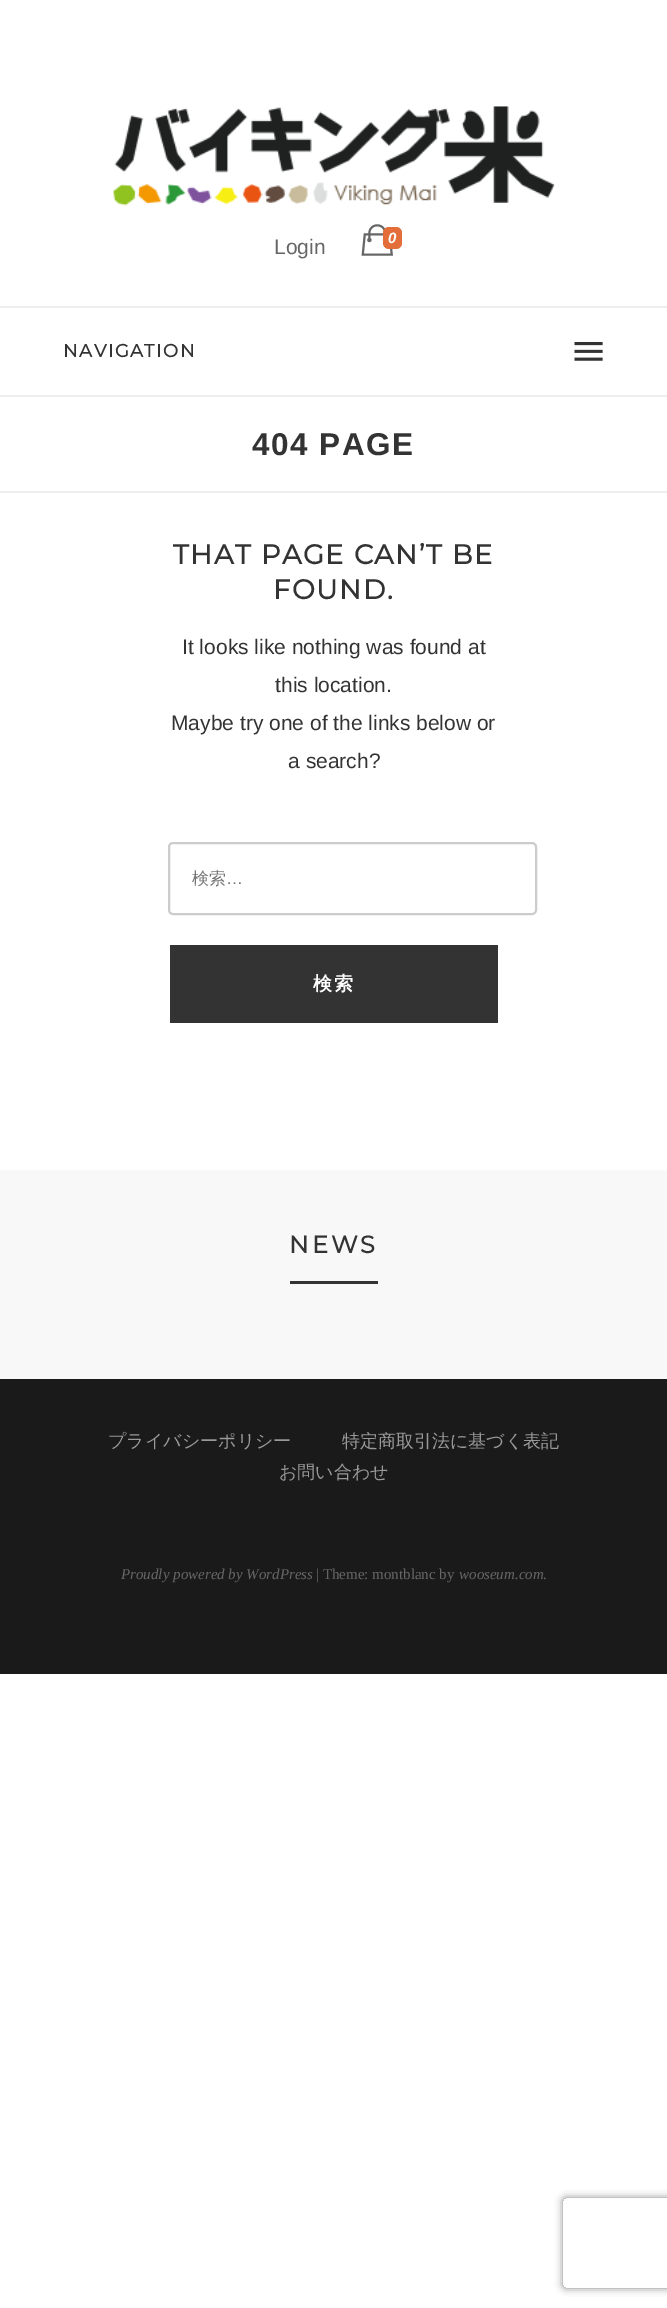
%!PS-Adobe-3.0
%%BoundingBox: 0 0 667 2308
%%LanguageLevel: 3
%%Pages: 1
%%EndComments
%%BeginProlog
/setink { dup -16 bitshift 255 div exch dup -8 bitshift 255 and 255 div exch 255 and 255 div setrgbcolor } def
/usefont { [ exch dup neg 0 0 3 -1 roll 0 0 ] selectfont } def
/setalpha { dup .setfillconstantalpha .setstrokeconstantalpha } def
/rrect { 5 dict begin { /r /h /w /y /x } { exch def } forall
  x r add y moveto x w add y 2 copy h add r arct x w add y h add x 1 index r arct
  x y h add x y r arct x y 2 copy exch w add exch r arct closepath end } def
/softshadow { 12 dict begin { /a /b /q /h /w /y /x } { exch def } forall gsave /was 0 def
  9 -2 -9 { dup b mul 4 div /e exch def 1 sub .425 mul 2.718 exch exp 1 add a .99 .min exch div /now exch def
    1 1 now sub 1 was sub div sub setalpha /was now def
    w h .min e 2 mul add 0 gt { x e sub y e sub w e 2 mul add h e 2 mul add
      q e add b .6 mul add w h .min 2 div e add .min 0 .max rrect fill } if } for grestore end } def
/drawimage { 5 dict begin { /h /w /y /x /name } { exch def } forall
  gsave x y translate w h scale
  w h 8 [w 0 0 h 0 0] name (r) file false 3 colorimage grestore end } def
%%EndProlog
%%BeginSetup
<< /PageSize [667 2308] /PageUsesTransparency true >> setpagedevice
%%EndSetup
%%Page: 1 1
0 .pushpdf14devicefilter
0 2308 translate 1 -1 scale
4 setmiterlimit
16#FFFFFF setink
0 0 667 2308 rectfill
(img1.raw) 113 106 442 100 drawimage
/LiberationSans-Regular 21 usefont
16#666666 setink
274 254 moveto (Login) show
(img2.raw) 361 224 32 32 drawimage
16#E36E3A setink
383 227 19 22 6 rrect fill
/LiberationSans-BoldItalic 15 usefont
16#FFFFFF setink
388 243 moveto (0) show
16#EEEEEE setink
0 306 667 2 rectfill
0 395 667 2 rectfill
/Montserrat-Bold 18 usefont
16#333333 setink
63 357 moveto 1.5 0 (NAVIGATION) ashow
(img3.raw) 574 342 29 19 drawimage
16#EEEEEE setink
0 491 667 2 rectfill
/LiberationSans-Bold 31.5 usefont
16#333333 setink
252 455 moveto 1.5 0 (404 PAGE) ashow
/Montserrat-Bold 27.25 usefont
173 564 moveto 1.5 0 (THAT PAGE CAN’T BE) ashow
273 599 moveto 1.5 0 (FOUND.) ashow
/LiberationSans-Regular 21 usefont
[
    [(It looks like nothing was found at) 182 654]
    [(this location.) 275 692]
    [(Maybe try one of the links below or) 171 730]
    [(a search?) 288 768]
] { aload pop moveto show } forall
16#CCCCCC setink
2 setlinewidth
169 843 367 71 4 rrect stroke
/WenQuanYiZenHei-Medium 17 usefont
16#757575 setink
192 884 moveto (検索) show
/LiberationSans-Regular 17 usefont
226 884 moveto (…) show
16#333333 setink
170 945 328 78 rectfill
/WenQuanYiZenHei-Bold 19 usefont
16#FFFFFF setink
313 990 moveto 1.5 0 (検索) ashow
16#F8F8F8 setink
0 1170 667 209 rectfill
/Montserrat-Bold 24 usefont
16#333333 setink
289 1253 moveto 3 0 (NEWS) ashow
290 1281 88 3 rectfill
16#1A1A1A setink
0 1379 667 295 rectfill
/WenQuanYiZenHei-Medium 18 usefont
16#999999 setink
[
    [(プライバシーポリシー) 108 1447]
    [(特定商取引法に基づく表記) 342 1447]
    [(お問い合わせ) 279 1478]
] { aload pop moveto show } forall
/LiberationSerif-Italic 15 usefont
16#666666 setink
121 1579 moveto (Proudly powered by WordPress) show
/LiberationSerif-Regular 15 usefont
316 1579 moveto (| Theme: montblanc by) show
/LiberationSerif-Italic 15 usefont
459 1579 moveto (wooseum.com) show
/LiberationSerif-Regular 15 usefont
543 1579 moveto (.) show
gsave
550 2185 moveto 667 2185 lineto 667 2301 lineto 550 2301 lineto closepath 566 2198 moveto 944 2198 lineto 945.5 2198 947 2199.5 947 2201 curveto 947 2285 lineto 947 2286.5 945.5 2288 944 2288 curveto 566 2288 lineto 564.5 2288 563 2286.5 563 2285 curveto 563 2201 lineto 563 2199.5 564.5 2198 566 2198 curveto closepath eoclip newpath
16#808080 setink
563 2198 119 90 3 4 1 softshadow
grestore
.poppdf14devicefilter showpage
%%EOF
